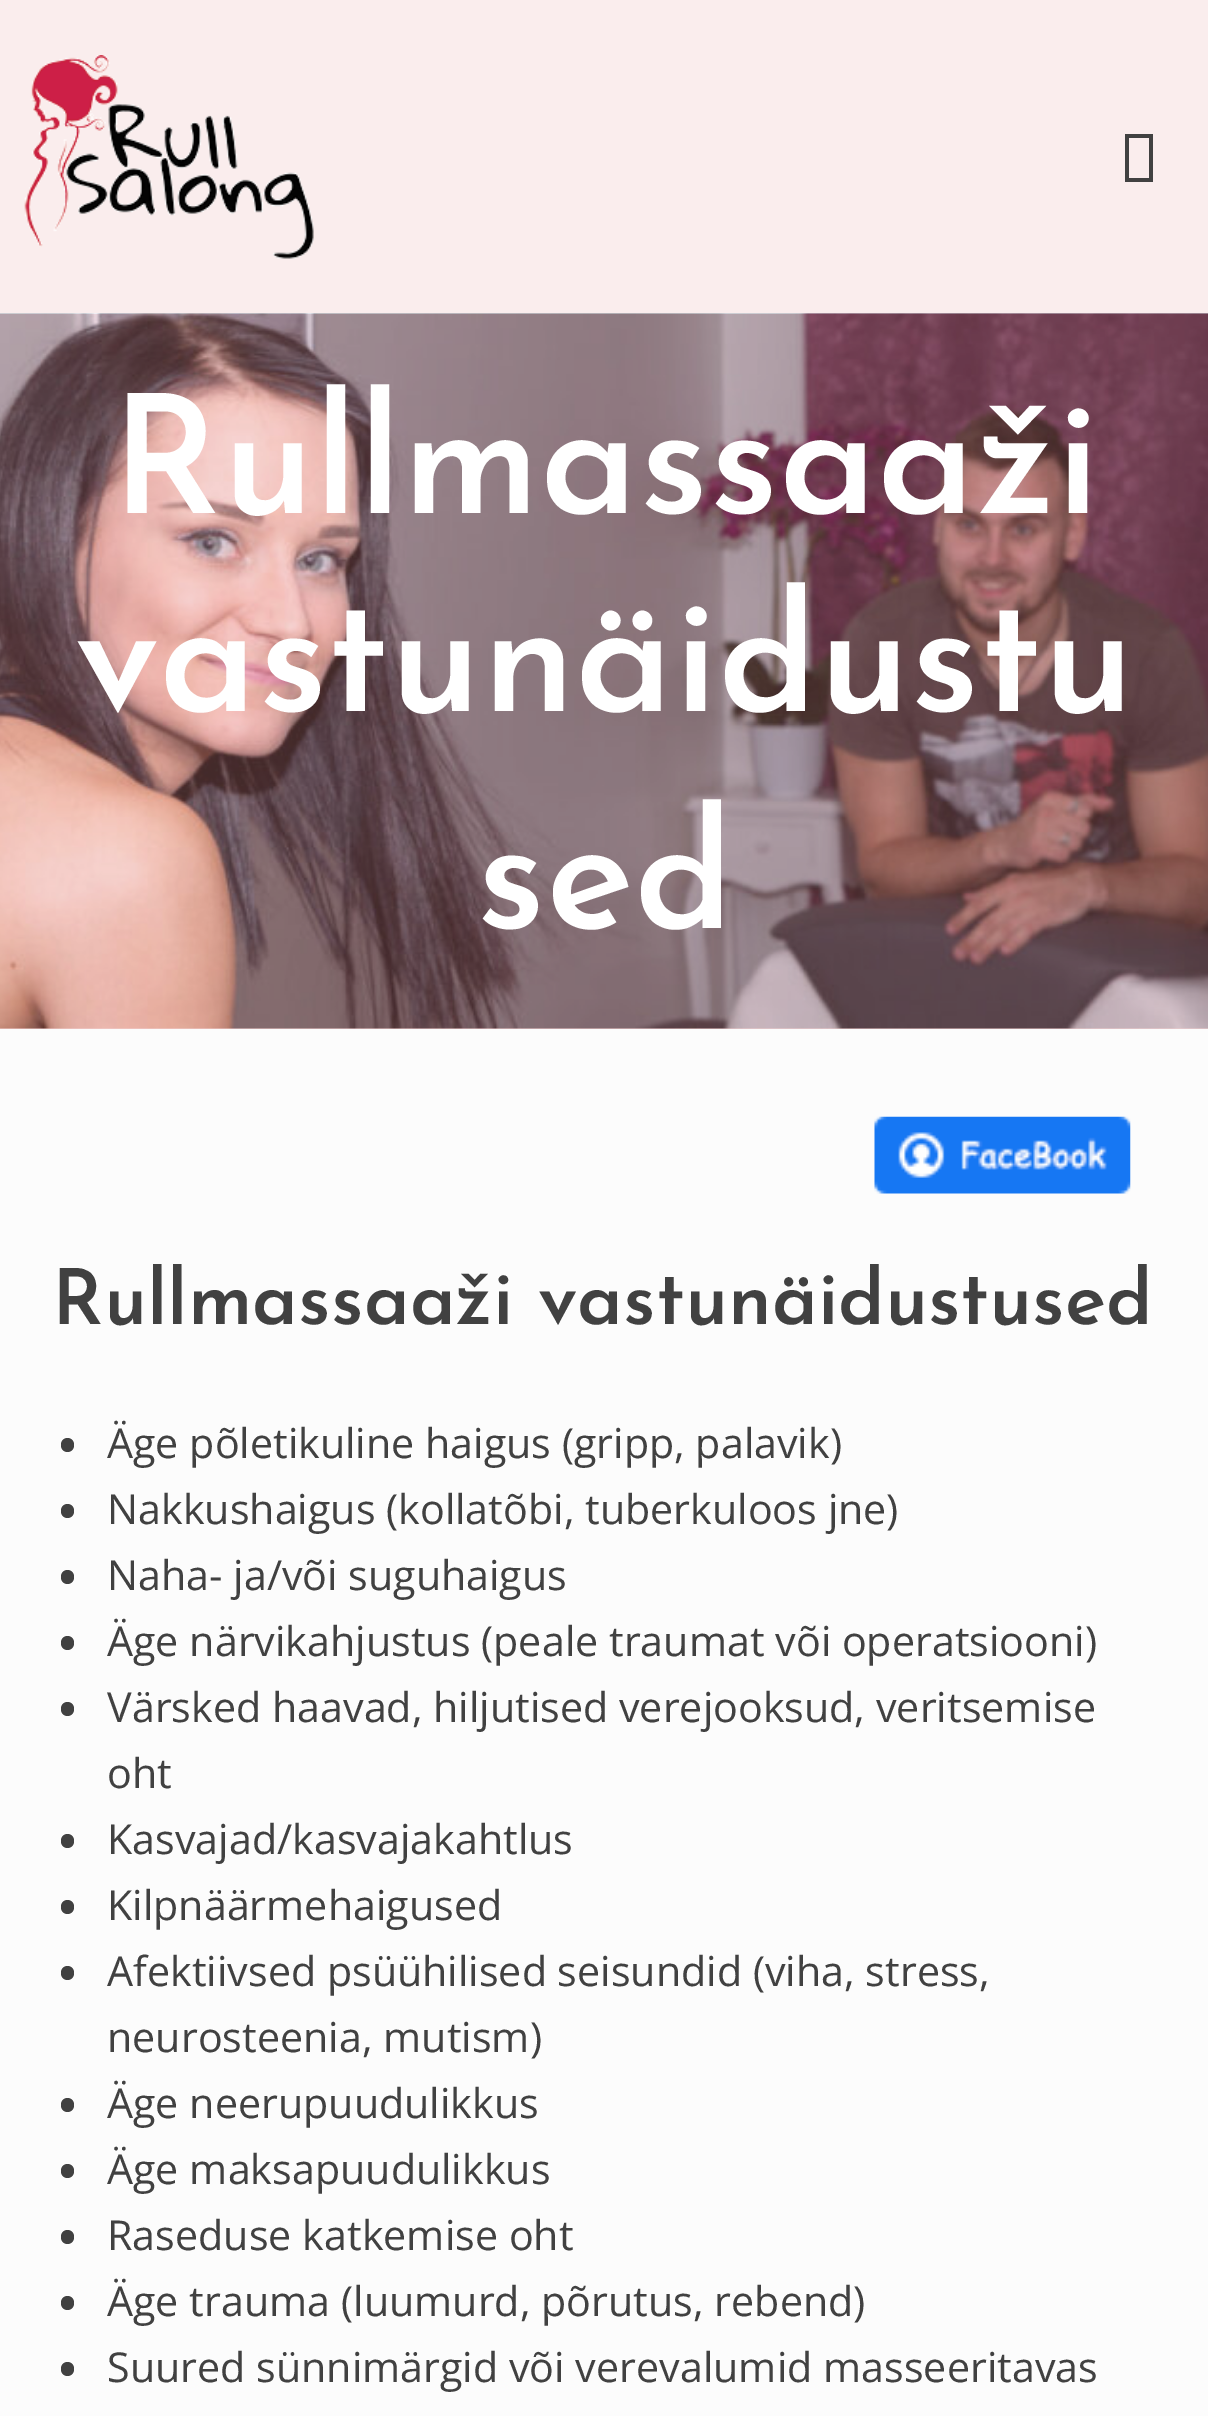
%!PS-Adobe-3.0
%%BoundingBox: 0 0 1208 2416
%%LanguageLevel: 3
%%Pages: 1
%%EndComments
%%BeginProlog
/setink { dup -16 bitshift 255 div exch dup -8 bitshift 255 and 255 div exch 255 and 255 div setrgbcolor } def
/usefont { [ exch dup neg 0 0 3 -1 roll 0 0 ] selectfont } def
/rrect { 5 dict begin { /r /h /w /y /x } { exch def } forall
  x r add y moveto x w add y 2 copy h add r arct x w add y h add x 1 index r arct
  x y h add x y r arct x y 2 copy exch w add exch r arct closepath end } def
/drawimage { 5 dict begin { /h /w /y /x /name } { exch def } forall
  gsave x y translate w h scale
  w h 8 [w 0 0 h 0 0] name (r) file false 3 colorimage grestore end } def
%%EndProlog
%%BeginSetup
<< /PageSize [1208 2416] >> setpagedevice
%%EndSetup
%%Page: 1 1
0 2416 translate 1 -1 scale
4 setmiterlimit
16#FCFCFC setink
0 0 1208 2416 rectfill
16#FAEDED setink
0 0 1208 314 rectfill
(img1.raw) 24 55 290 204 drawimage
16#414141 setink
1125 182 moveto 1125 134 lineto 1153 134 lineto 1153 182 lineto closepath 1129 178 moveto 1149 178 lineto 1149 138 lineto 1129 138 lineto closepath fill
16#F2D0D0 setink
0 1028 1208 1 rectfill
(img2.raw) 0 313 1208 716 drawimage
/JosefinSans-SemiBold 165 usefont
16#FFFFFF setink
[
    [(Rullmassaaži) 111 513]
    [(vastunäidustu) 75 711]
    [(sed) 476 928]
] { aload pop moveto show } forall
(img3.raw) 874 1116 257 78 drawimage
/JosefinSans-SemiBold 77 usefont
16#414141 setink
52 1324 moveto (Rullmassaaži vastunäidustused) show
61 1438 13 14 6.5 rrect fill
/OpenSans-Regular 41.25 usefont
107 1458 moveto (Äge põletikuline haigus \(gripp, palavik\)) show
61 1504 13 14 6.5 rrect fill
107 1524 moveto (Nakkushaigus \(kollatõbi, tuberkuloos jne\)) show
61 1570 13 14 6.5 rrect fill
107 1590 moveto (Naha- ja/või suguhaigus) show
61 1636 13 14 6.5 rrect fill
107 1656 moveto (Äge närvikahjustus \(peale traumat või operatsiooni\)) show
61 1702 13 14 6.5 rrect fill
107 1722 moveto (Värsked haavad, hiljutised verejooksud, veritsemise) show
107 1788 moveto (oht) show
61 1834 13 14 6.5 rrect fill
107 1854 moveto (Kasvajad/kasvajakahtlus) show
61 1900 13 14 6.5 rrect fill
107 1920 moveto (Kilpnäärmehaigused) show
61 1966 13 14 6.5 rrect fill
107 1986 moveto (Afektiivsed psüühilised seisundid \(viha, stress,) show
107 2052 moveto (neurosteenia, mutism\)) show
61 2098 13 14 6.5 rrect fill
107 2118 moveto (Äge neerupuudulikkus) show
61 2164 13 14 6.5 rrect fill
107 2184 moveto (Äge maksapuudulikkus) show
61 2230 13 14 6.5 rrect fill
107 2250 moveto (Raseduse katkemise oht) show
61 2296 13 14 6.5 rrect fill
107 2316 moveto (Äge trauma \(luumurd, põrutus, rebend\)) show
61 2362 13 14 6.5 rrect fill
107 2382 moveto (Suured sünnimärgid või verevalumid masseeritavas) show
showpage
%%EOF
